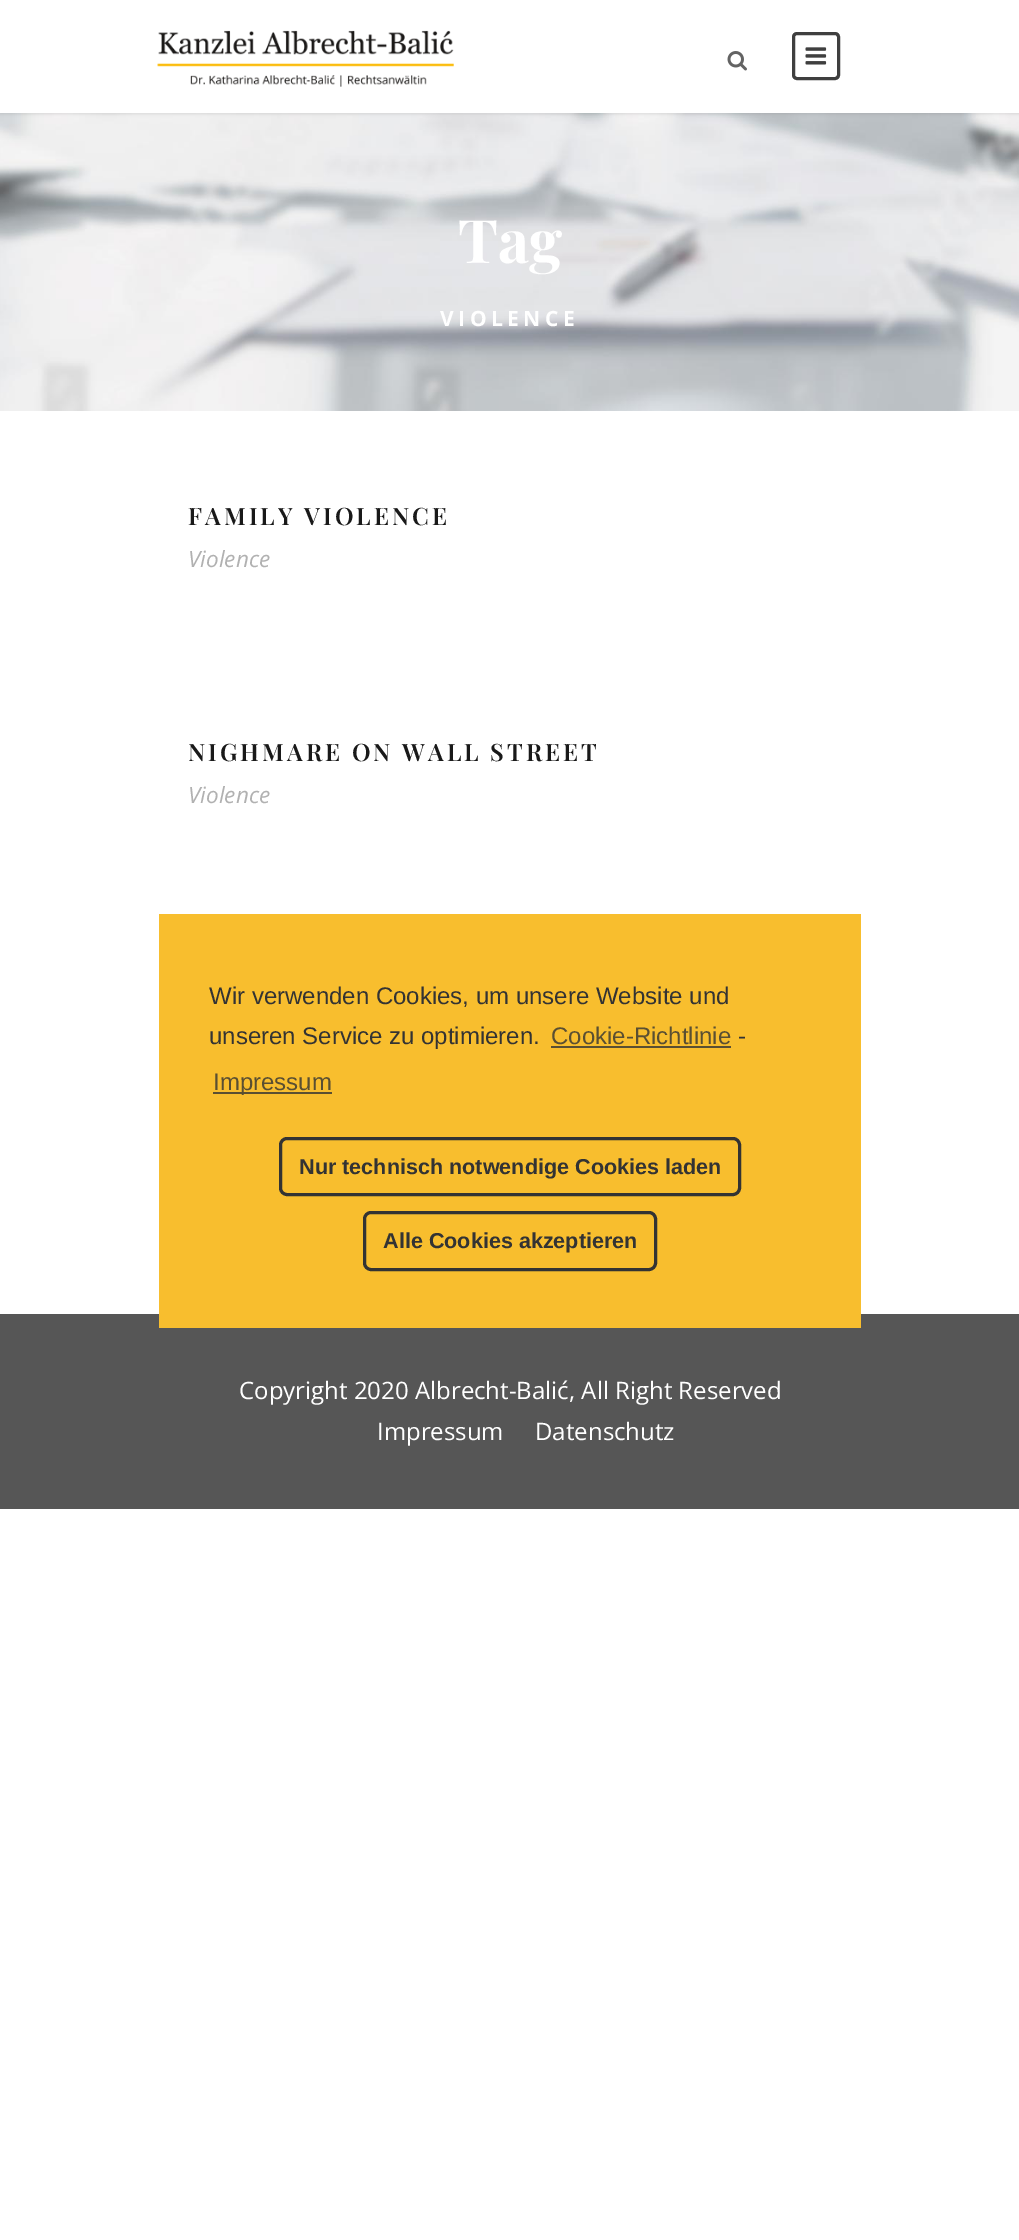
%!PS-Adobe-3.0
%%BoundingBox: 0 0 1019 2240
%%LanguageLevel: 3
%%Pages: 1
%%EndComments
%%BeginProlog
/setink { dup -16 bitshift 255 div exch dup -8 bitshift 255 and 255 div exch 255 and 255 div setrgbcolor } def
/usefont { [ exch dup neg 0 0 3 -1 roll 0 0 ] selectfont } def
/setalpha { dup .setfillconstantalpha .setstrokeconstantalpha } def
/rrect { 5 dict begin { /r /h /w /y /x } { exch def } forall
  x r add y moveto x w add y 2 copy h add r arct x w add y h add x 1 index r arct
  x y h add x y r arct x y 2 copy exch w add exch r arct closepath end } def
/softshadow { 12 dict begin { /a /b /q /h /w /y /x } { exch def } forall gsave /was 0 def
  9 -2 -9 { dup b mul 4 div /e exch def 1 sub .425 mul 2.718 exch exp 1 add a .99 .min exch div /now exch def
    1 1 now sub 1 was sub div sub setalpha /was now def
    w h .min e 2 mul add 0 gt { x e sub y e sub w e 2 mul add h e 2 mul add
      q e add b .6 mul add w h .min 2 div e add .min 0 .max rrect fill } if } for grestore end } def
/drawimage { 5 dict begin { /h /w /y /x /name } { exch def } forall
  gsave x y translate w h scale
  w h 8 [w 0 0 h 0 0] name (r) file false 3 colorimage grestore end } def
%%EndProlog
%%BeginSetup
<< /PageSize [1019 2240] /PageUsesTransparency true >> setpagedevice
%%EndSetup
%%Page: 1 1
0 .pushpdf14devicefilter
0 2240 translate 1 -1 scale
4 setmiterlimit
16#FFFFFF setink
0 0 1019 2240 rectfill
(img4.raw) 0 113 1019 298 drawimage
16#000000 setink
0 2 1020 112 0 1.5 0.1 softshadow
16#FFFFFF setink
0 0 1019 113 rectfill
(img1.raw) 157 30 297 57 drawimage
(img2.raw) 727 51 20 20 drawimage
16#3F3F3F setink
3 setlinewidth
793.5 33.5 45 45 3.5 rrect stroke
(img3.raw) 805 47 22 18 drawimage
/PlayfairDisplay-Bold 60 usefont
16#FFFFFF setink
458 263 moveto (Tag) show
/OpenSans-Bold 21 usefont
440 326 moveto 4.5 0 (VIOLENCE) ashow
/PlayfairDisplay-SemiBold 24 usefont
16#191919 setink
188 525 moveto 3 0 (FAMILY VIOLENCE) ashow
/OpenSans-Italic 22.5 usefont
16#B1B1B1 setink
188 567 moveto (Violence) show
/PlayfairDisplay-SemiBold 24 usefont
16#191919 setink
188 761 moveto 3 0 (NIGHMARE ON WALL STREET) ashow
/OpenSans-Italic 22.5 usefont
16#B1B1B1 setink
188 803 moveto (Violence) show
16#565656 setink
0 1314 1019 195 rectfill
/OpenSans-Regular 24 usefont
16#FFFFFF setink
[
    [(Copyright 2020 Albrecht-Balić, All Right Reserved) 239 1399]
    [(Impressum) 377 1440]
    [(Datenschutz) 535 1440]
] { aload pop moveto show } forall
16#F8BE2E setink
159 914 702 414 rectfill
/LiberationSans-Regular 24 usefont
16#333333 setink
209 1004 moveto (Wir verwenden Cookies, um unsere Website und) show
209 1044 moveto (unseren Service zu optimieren.) show
16#5A4F32 setink
551 1044 moveto (Cookie-Richtlinie) show
551 1046 180 2 rectfill
16#333333 setink
738 1044 moveto (-) show
16#5A4F32 setink
213 1092 119 2 rectfill
213 1090 moveto (Impressum) show
16#333333 setink
280.5 1138.5 459 56 6.5 rrect stroke
/LiberationSans-Bold 21.6 usefont
299 1174 moveto (Nur technisch notwendige Cookies laden) show
364.5 1212.5 291 57 6.5 rrect stroke
383 1248 moveto (Alle Cookies akzeptieren) show
.poppdf14devicefilter showpage
%%EOF
